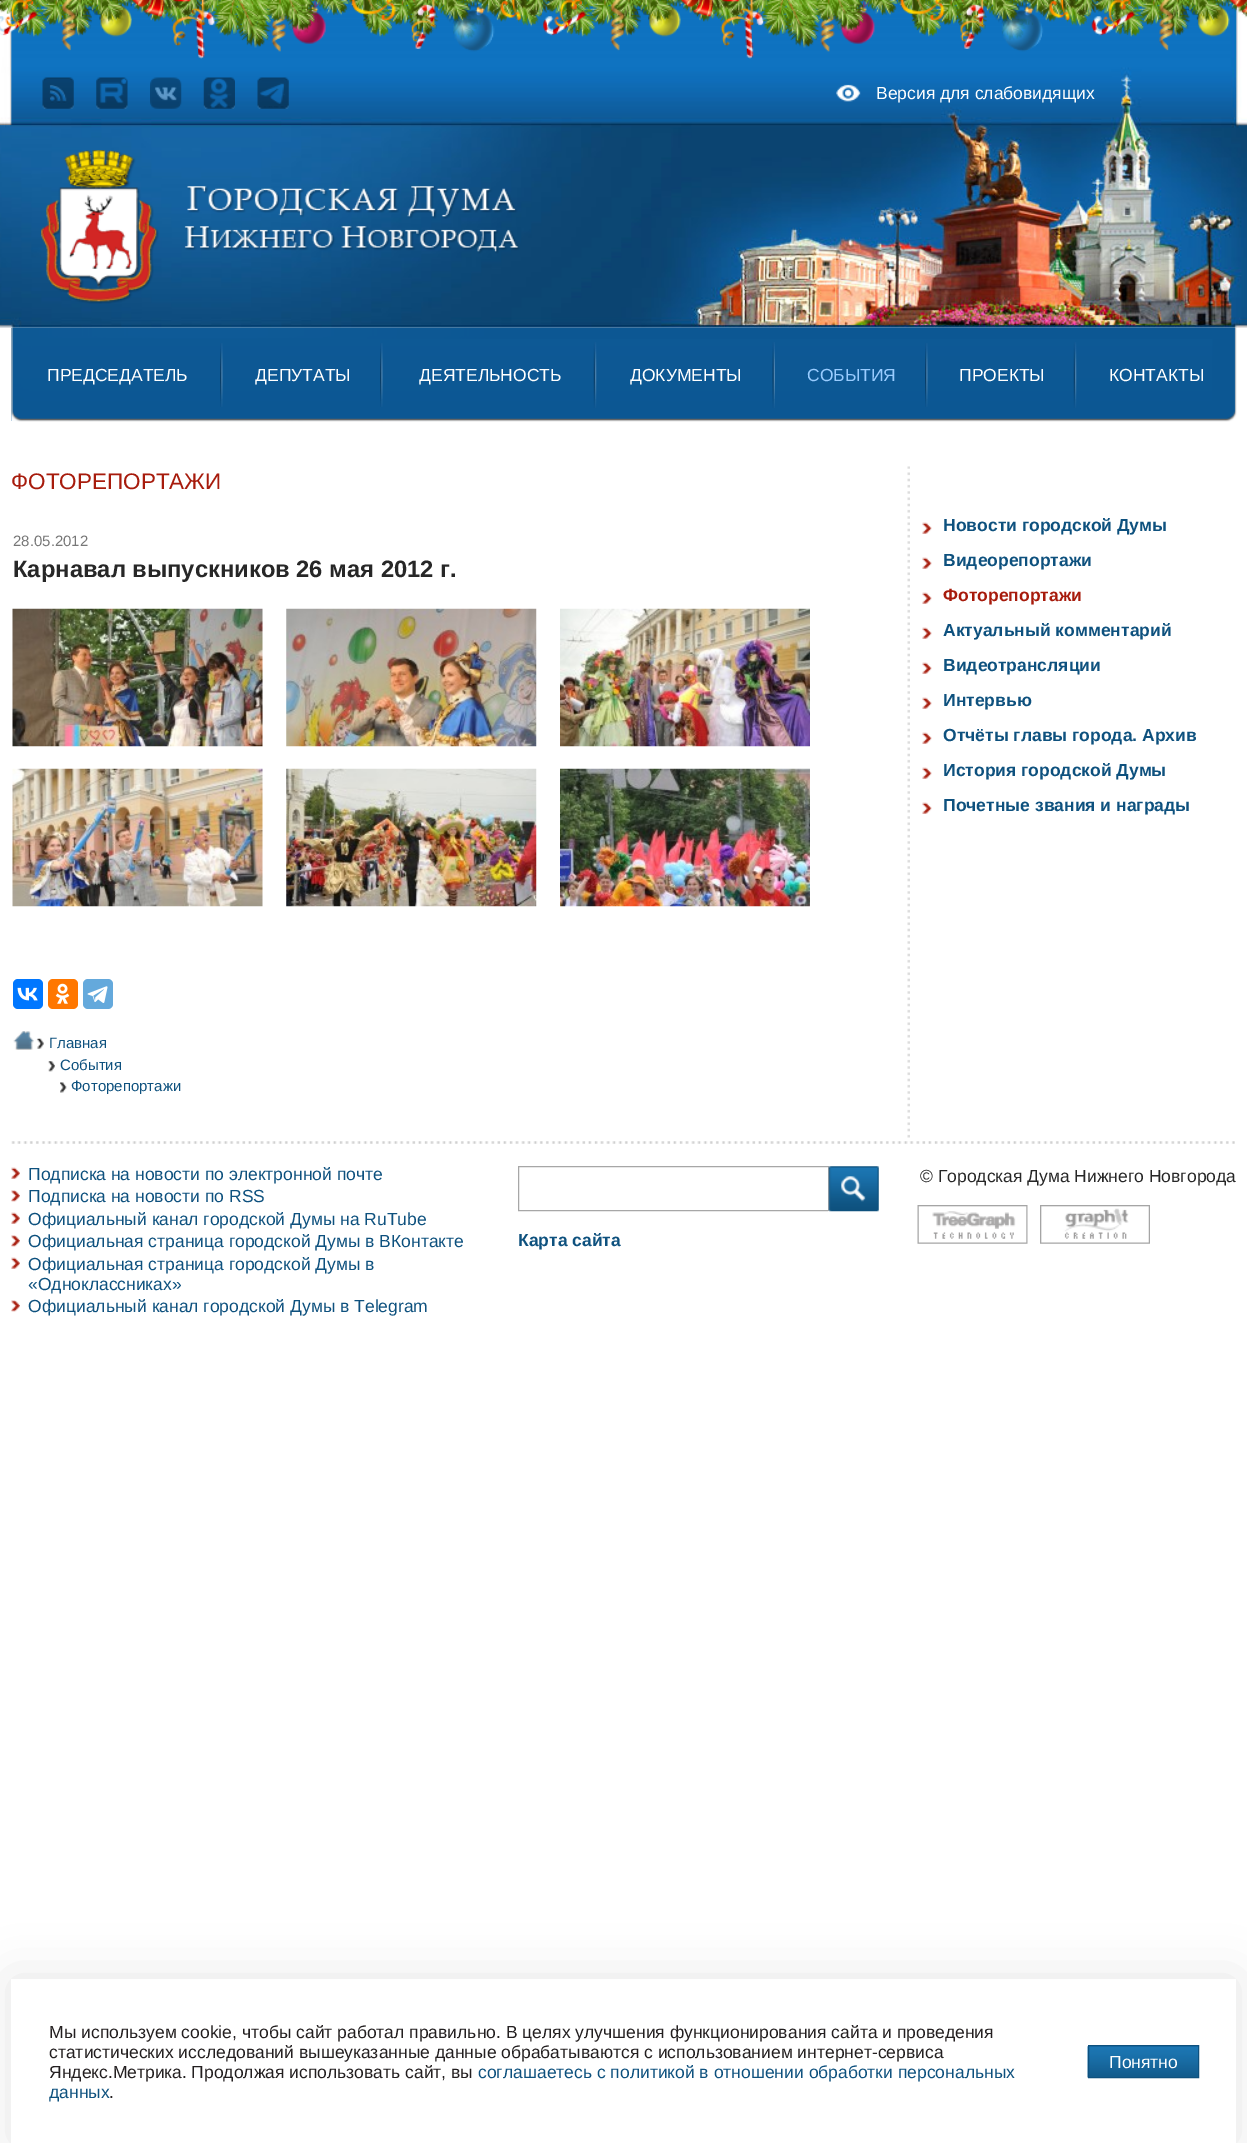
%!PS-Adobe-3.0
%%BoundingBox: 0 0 1247 2143
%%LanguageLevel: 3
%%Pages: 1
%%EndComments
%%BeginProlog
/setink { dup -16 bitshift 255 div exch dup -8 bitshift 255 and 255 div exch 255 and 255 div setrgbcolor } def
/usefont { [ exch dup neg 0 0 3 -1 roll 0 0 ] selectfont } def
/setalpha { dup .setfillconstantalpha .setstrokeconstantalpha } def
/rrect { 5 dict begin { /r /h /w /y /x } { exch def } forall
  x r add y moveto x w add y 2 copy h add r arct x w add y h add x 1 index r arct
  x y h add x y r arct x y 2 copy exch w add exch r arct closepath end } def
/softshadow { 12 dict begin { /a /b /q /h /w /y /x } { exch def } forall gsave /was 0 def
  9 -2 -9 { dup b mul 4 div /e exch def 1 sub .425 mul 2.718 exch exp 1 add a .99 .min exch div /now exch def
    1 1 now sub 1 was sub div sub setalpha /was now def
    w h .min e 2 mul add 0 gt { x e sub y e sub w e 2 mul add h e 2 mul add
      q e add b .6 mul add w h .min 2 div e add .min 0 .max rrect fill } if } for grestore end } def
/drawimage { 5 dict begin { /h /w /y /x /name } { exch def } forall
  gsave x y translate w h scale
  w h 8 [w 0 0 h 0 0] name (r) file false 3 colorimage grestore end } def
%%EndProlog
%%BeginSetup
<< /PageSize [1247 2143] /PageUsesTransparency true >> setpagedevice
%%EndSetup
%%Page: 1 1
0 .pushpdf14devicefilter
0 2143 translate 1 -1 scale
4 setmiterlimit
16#FFFFFF setink
0 0 1247 2143 rectfill
(img1.raw) 0 327 1247 1 drawimage
(img3.raw) 0 0 1247 328 drawimage
(img2.raw) 0 0 1247 59 drawimage
(img4.raw) 42 77 32 32 drawimage
(img5.raw) 96 77 32 32 drawimage
(img6.raw) 150 77 32 32 drawimage
(img7.raw) 203 77 32 32 drawimage
(img8.raw) 257 77 32 32 drawimage
(img9.raw) 836 84 25 18 drawimage
/LiberationSans-Regular 17.5 usefont
876 99 moveto (Версия для слабовидящих) show
(img10.raw) 41 150 479 154 drawimage
(img11.raw) 11 327 1226 95 drawimage
(img12.raw) 220 343 3 64 drawimage
47 381 moveto (ПРЕДСЕДАТЕЛЬ) show
(img12.raw) 380 343 3 64 drawimage
255 381 moveto (ДЕПУТАТЫ) show
(img13.raw) 593 342 4 66 drawimage
419 381 moveto (ДЕЯТЕЛЬНОСТЬ) show
(img14.raw) 772 342 3 66 drawimage
630 381 moveto (ДОКУМЕНТЫ) show
(img12.raw) 925 343 3 64 drawimage
16#99CCFF setink
807 381 moveto (СОБЫТИЯ) show
(img13.raw) 1073 342 4 66 drawimage
16#FFFFFF setink
959 381 moveto (ПРОЕКТЫ) show
1109 381 moveto (КОНТАКТЫ) show
/LiberationSans-Regular 22.5 usefont
16#A71B0C setink
11 489 moveto (ФОТОРЕПОРТАЖИ) show
/LiberationSans-Regular 15 usefont
16#777777 setink
13 546 moveto (28.05.2012) show
/LiberationSans-Bold 23.75 usefont
16#272727 setink
13 577 moveto (Карнавал выпускников 26 мая 2012 г.) show
(img15.raw) 12 608 251 139 drawimage
(img16.raw) 286 608 251 139 drawimage
(img17.raw) 560 608 250 139 drawimage
(img18.raw) 12 768 251 139 drawimage
(img19.raw) 286 768 251 139 drawimage
(img20.raw) 560 768 250 139 drawimage
16#0077FF setink
13 979 30 30 5 rrect fill
(img21.raw) 17 987 21 14 drawimage
16#FF7700 setink
48 979 30 30 5 rrect fill
(img22.raw) 55 983 15 21 drawimage
16#64A9DC setink
83 979 30 30 5 rrect fill
(img23.raw) 87 986 21 17 drawimage
(img24.raw) 13 1031 31 19 drawimage
/LiberationSans-Regular 15 usefont
16#0E517E setink
49 1048 moveto (Главная) show
(img25.raw) 48 1061 7 11 drawimage
60 1070 moveto (События) show
(img26.raw) 60 1082 7 11 drawimage
71 1091 moveto (Фоторепортажи) show
(img27.raw) 907 466 3 676 drawimage
(img28.raw) 922 522 10 12 drawimage
/LiberationSans-Bold 17.5 usefont
943 531 moveto (Новости городской Думы) show
(img28.raw) 922 557 10 12 drawimage
943 566 moveto (Видеорепортажи) show
(img28.raw) 922 592 10 12 drawimage
16#A71B0C setink
943 601 moveto (Фоторепортажи) show
(img28.raw) 922 627 10 12 drawimage
16#0E517E setink
943 636 moveto (Актуальный комментарий) show
(img28.raw) 922 662 10 12 drawimage
943 671 moveto (Видеотрансляции) show
(img28.raw) 922 697 10 12 drawimage
943 706 moveto (Интервью) show
(img28.raw) 922 732 10 12 drawimage
943 741 moveto (Отчёты главы города. Архив) show
(img28.raw) 922 767 10 12 drawimage
943 776 moveto (История городской Думы) show
(img28.raw) 922 802 10 12 drawimage
943 811 moveto (Почетные звания и награды) show
(img29.raw) 11 1141 1224 3 drawimage
(img30.raw) 11 1167 9 12 drawimage
/LiberationSans-Regular 17.5 usefont
28 1180 moveto (Подписка на новости по электронной почте) show
(img31.raw) 11 1190 9 12 drawimage
28 1202 moveto (Подписка на новости по RSS) show
(img32.raw) 11 1212 9 12 drawimage
28 1225 moveto (Официальный канал городской Думы на RuTube) show
(img31.raw) 11 1235 9 12 drawimage
28 1247 moveto (Официальная страница городской Думы в ВКонтакте) show
(img32.raw) 11 1257 9 12 drawimage
28 1270 moveto (Официальная страница городской Думы в) show
28 1290 moveto («Одноклассниках») show
(img31.raw) 11 1300 9 12 drawimage
28 1312 moveto (Официальный канал городской Думы в Telegram) show
16#272727 setink
920 1182 moveto (© Городская Дума Нижнего Новгорода) show
(img33.raw) 917 1205 111 39 drawimage
(img34.raw) 1040 1205 110 39 drawimage
16#A7A7A7 setink
518.5 1166.5 310 44 rectstroke
(img35.raw) 828 1166 51 46 drawimage
/LiberationSans-Bold 17.5 usefont
16#0E517E setink
518 1246 moveto (Карта сайта) show
16#000000 setink
11 1979 1225 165 0 25 0.1 softshadow
16#FFFFFF setink
11 1979 1225 164 rectfill
/LiberationSans-Regular 17.5 usefont
16#231F20 setink
[
    [(Мы используем cookie, чтобы сайт работал правильно. В целях улучшения функционирования сайта и проведения) 49 2038]
    [(статистических исследований вышеуказанные данные обрабатываются с использованием интернет-сервиса) 49 2058]
    [(Яндекс.Метрика. Продолжая использовать сайт, вы) 49 2078]
] { aload pop moveto show } forall
16#0E517E setink
478 2078 moveto (соглашаетесь с политикой в отношении обработки персональных) show
49 2098 moveto (данных) show
16#231F20 setink
109 2098 moveto (.) show
(img36.raw) 1087 2046 111 32 drawimage
16#0E517E setink
1088.5 2045.5 110 32 rectstroke
16#FFFFFF setink
1109 2068 moveto (Понятно) show
.poppdf14devicefilter showpage
%%EOF
